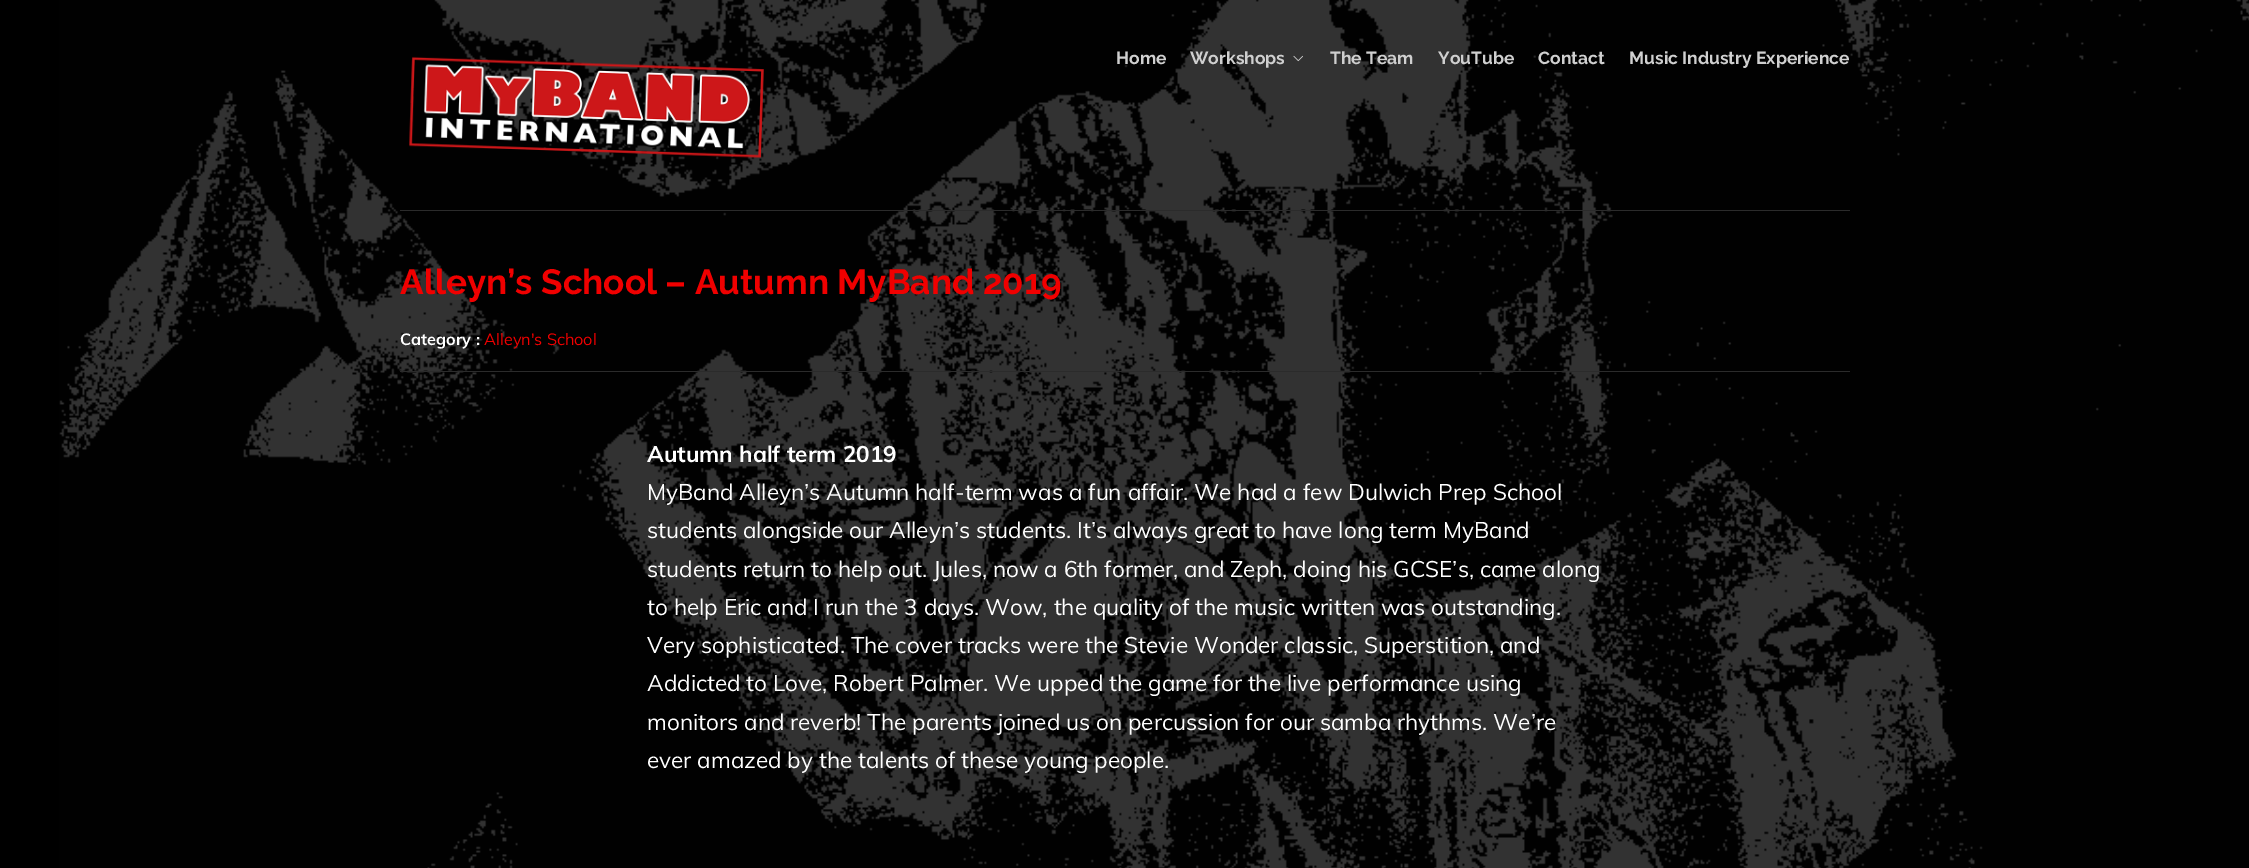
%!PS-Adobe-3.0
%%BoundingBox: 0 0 2249 868
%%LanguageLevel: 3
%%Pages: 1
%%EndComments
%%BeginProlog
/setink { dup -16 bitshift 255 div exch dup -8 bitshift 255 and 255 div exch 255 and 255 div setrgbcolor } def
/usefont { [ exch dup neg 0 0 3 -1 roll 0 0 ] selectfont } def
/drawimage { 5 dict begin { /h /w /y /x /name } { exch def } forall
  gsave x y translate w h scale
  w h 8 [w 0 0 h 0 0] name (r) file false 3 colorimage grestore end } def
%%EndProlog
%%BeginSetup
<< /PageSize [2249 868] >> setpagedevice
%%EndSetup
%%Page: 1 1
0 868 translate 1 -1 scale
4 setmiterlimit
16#000000 setink
0 0 2249 868 rectfill
(img1.raw) 59 0 2190 868 drawimage
16#2B2B2B setink
400 210 1450 1 rectfill
(img2.raw) 409 56 355 102 drawimage
/Raleway-Bold 17.5 usefont
16#CFCFCF setink
1116 64 moveto (Home) show
1190 64 moveto (Workshops) show
(img3.raw) 1293 55 10 7 drawimage
[
    [(The Team) 1330 64]
    [(YouTube) 1438 64]
    [(Contact) 1538 64]
    [(Music Industry Experience) 1629 64]
] { aload pop moveto show } forall
/Raleway-Bold 35 usefont
16#F00000 setink
400 294 moveto (Alleyn’s School – Autumn MyBand 2019) show
16#2B2B2B setink
400 371 1450 1 rectfill
/Muli-Bold 16.25 usefont
16#FFFFFF setink
400 345 moveto (Category :) show
/Muli-Regular 16.25 usefont
16#F00000 setink
484 345 moveto (Alleyn's School) show
/Muli-Bold 22.5 usefont
16#FFFFFF setink
647 462 moveto (Autumn half term 2019) show
/Muli-Regular 22.5 usefont
[
    [(MyBand Alleyn’s Autumn half-term was a fun affair. We had a few Dulwich Prep School) 647 500]
    [(students alongside our Alleyn’s students. It’s always great to have long term MyBand) 647 538]
    [(students return to help out. Jules, now a 6th former, and Zeph, doing his GCSE’s, came along) 647 577]
    [(to help Eric and I run the 3 days. Wow, the quality of the music written was outstanding.) 647 615]
    [(Very sophisticated. The cover tracks were the Stevie Wonder classic, Superstition, and) 647 653]
    [(Addicted to Love, Robert Palmer. We upped the game for the live performance using) 647 691]
    [(monitors and reverb! The parents joined us on percussion for our samba rhythms. We’re) 647 730]
    [(ever amazed by the talents of these young people.) 647 768]
] { aload pop moveto show } forall
showpage
%%EOF
